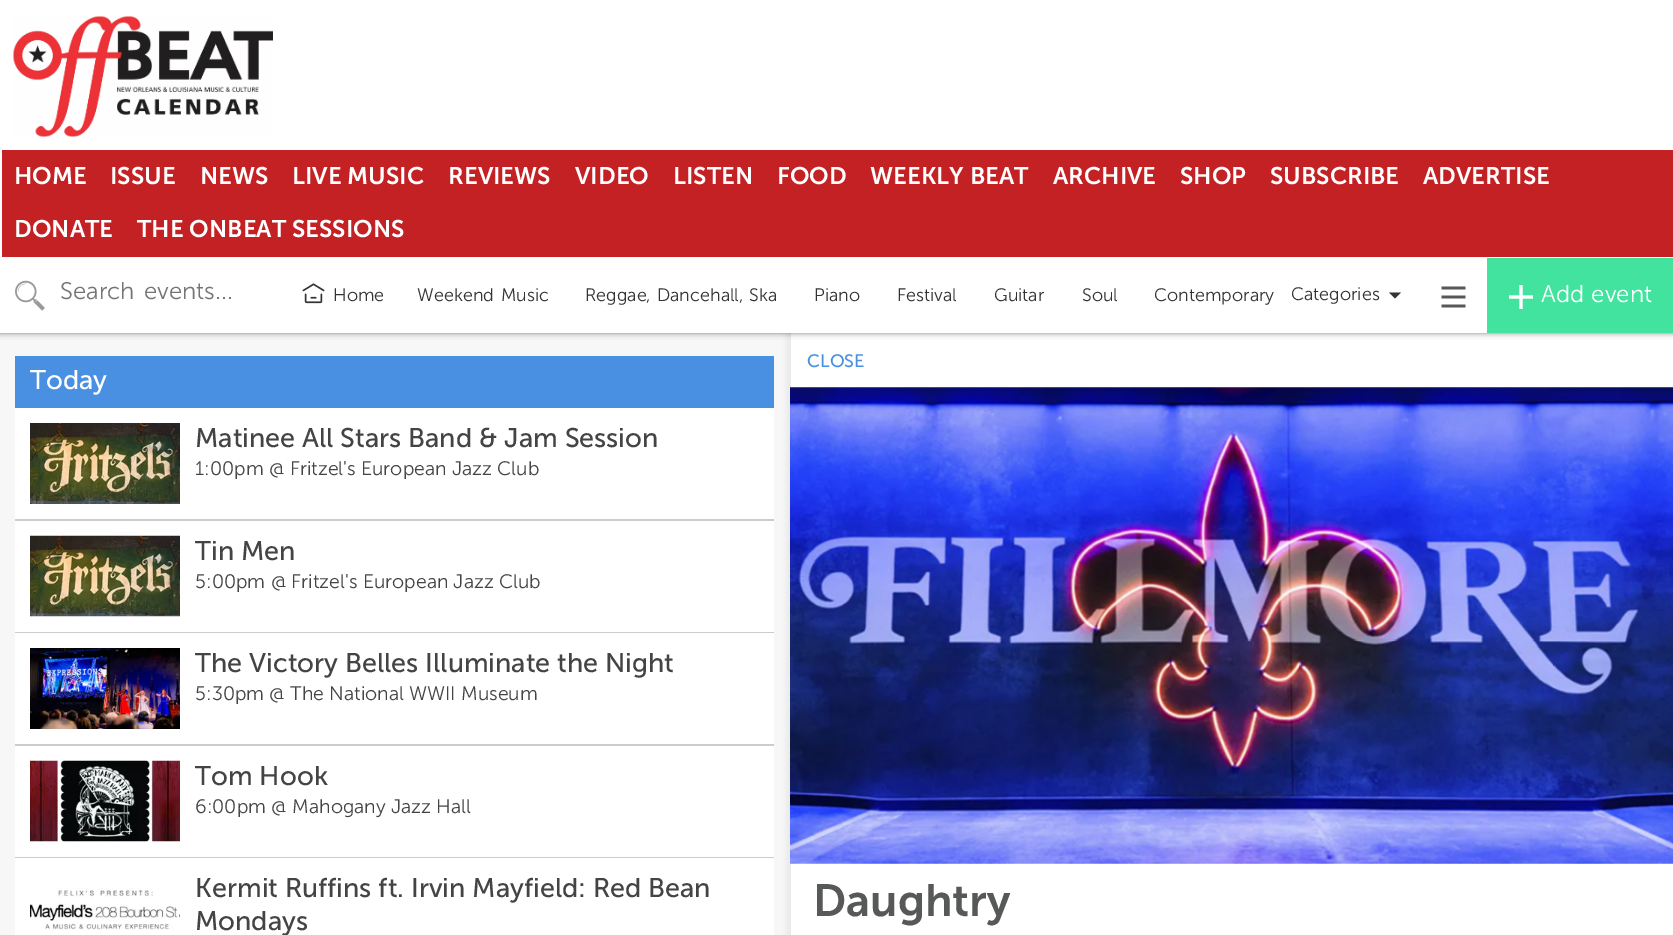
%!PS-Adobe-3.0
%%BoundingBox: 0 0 1673 935
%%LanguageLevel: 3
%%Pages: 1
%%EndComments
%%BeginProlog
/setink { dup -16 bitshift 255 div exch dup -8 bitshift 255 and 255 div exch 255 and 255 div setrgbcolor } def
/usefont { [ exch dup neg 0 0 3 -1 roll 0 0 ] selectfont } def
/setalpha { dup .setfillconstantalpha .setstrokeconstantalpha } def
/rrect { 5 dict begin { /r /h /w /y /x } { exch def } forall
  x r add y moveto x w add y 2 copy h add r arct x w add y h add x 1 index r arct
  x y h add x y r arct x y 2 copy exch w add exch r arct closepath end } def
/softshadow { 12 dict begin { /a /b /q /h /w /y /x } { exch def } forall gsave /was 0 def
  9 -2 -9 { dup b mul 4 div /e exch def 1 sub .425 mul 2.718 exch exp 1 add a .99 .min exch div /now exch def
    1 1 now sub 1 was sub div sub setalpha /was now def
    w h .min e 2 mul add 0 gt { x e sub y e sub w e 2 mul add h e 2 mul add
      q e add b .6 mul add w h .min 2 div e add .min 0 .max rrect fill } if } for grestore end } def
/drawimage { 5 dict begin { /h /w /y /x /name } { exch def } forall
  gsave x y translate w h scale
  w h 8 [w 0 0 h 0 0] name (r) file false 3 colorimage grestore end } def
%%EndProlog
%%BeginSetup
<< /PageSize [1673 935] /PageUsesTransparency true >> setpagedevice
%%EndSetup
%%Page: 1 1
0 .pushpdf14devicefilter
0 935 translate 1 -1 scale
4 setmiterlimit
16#F7F7F7 setink
0 0 1673 935 rectfill
16#000000 setink
786 332 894 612 0 3 0.06 softshadow
16#E8E9EA setink
789 333 2 4 rectfill
16#FFFFFF setink
791 333 882 602 rectfill
16#000000 setink
0 258 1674 75 0 3 0.5 softshadow
16#FFFFFF setink
0 0 1673 258 rectfill
(img1.raw) 13 16 260 121 drawimage
16#C42125 setink
2 150 1671 107 rectfill
/MuseoSans-SemiBold 24 usefont
16#FFFFFF setink
[
    [(HOME) 14 184]
    [(ISSUE) 110 184]
    [(NEWS) 200 184]
    [(LIVE MUSIC) 292 184]
    [(REVIEWS) 448 184]
    [(VIDEO) 575 184]
    [(LISTEN) 673 184]
    [(FOOD) 777 184]
    [(WEEKLY BEAT) 870 184]
    [(ARCHIVE) 1053 184]
    [(SHOP) 1180 184]
    [(SUBSCRIBE) 1270 184]
    [(ADVERTISE) 1423 184]
    [(DONATE) 14 237]
    [(THE ONBEAT SESSIONS) 137 237]
] { aload pop moveto show } forall
0 258 1487 75 rectfill
(img2.raw) 15 280 30 31 drawimage
/MuseoSans-Light 24 usefont
16#757575 setink
60 299 moveto 3 0 32 (Search events...) widthshow
(img3.raw) 302 283 23 21 drawimage
/MuseoSans-Light 18 usefont
16#333333 setink
333 301 moveto (Home) show
417 301 moveto 2 0 32 (Weekend Music) widthshow
585 301 moveto 1 0 32 (Reggae, Dancehall, Ska) widthshow
[
    [(Piano) 814 301]
    [(Festival) 897 301]
    [(Guitar) 994 301]
    [(Soul) 1082 301]
] { aload pop moveto show } forall
1154 301 moveto 2 0 32 (Contemporary) widthshow
1291 300 moveto (Categories) show
1389 292.5 moveto 1401 292.5 lineto 1395 298.5 lineto closepath fill
(img4.raw) 1441 286 25 22 drawimage
16#42E39E setink
1487 258 186 75 rectfill
(img5.raw) 1509 285 24 24 drawimage
/MuseoSans-Light 24 usefont
16#FFFFFF setink
1541 302 moveto 1 0 32 (Add event) widthshow
16#4A90E2 setink
15 356 759 52 rectfill
/MuseoSans-Regular 27 usefont
16#FFFFFF setink
30 389 moveto (Today) show
15 408 759 111 rectfill
16#CCCCCC setink
15 519 759 2 rectfill
(img6.raw) 30 423 150 81 drawimage
16#444444 setink
195 447 moveto (Matinee All Stars Band & Jam Session) show
/MuseoSans-Light 19.5 usefont
195 475 moveto (1:00pm @ Fritzel's European Jazz Club) show
16#FFFFFF setink
15 521 759 111 rectfill
16#CCCCCC setink
15 632 759 1 rectfill
(img7.raw) 30 535 150 82 drawimage
/MuseoSans-Regular 27 usefont
16#444444 setink
195 560 moveto (Tin Men) show
/MuseoSans-Light 19.5 usefont
195 588 moveto (5:00pm @ Fritzel's European Jazz Club) show
16#FFFFFF setink
15 633 759 111 rectfill
16#CCCCCC setink
15 744 759 2 rectfill
(img8.raw) 30 648 150 81 drawimage
/MuseoSans-Regular 27 usefont
16#444444 setink
195 672 moveto (The Victory Belles Illuminate the Night) show
/MuseoSans-Light 19.5 usefont
195 700 moveto (5:30pm @ The National WWII Museum) show
16#FFFFFF setink
15 746 759 111 rectfill
16#CCCCCC setink
15 857 759 1 rectfill
(img9.raw) 30 760 150 82 drawimage
/MuseoSans-Regular 27 usefont
16#444444 setink
195 785 moveto (Tom Hook) show
/MuseoSans-Light 19.5 usefont
195 813 moveto (6:00pm @ Mahogany Jazz Hall) show
16#FFFFFF setink
15 858 759 77 rectfill
(img10.raw) 30 888 150 42 drawimage
/MuseoSans-Regular 27 usefont
16#444444 setink
195 897 moveto (Kermit Ruffins ft. Irvin Mayfield: Red Bean) show
195 930 moveto (Mondays) show
/MuseoSans-Regular 18 usefont
16#4A90E2 setink
807 367 moveto (CLOSE) show
(img11.raw) 790 387 883 477 drawimage
/MuseoSans-SemiBold 45 usefont
16#575858 setink
813 916 moveto (Daughtry) show
.poppdf14devicefilter showpage
%%EOF
